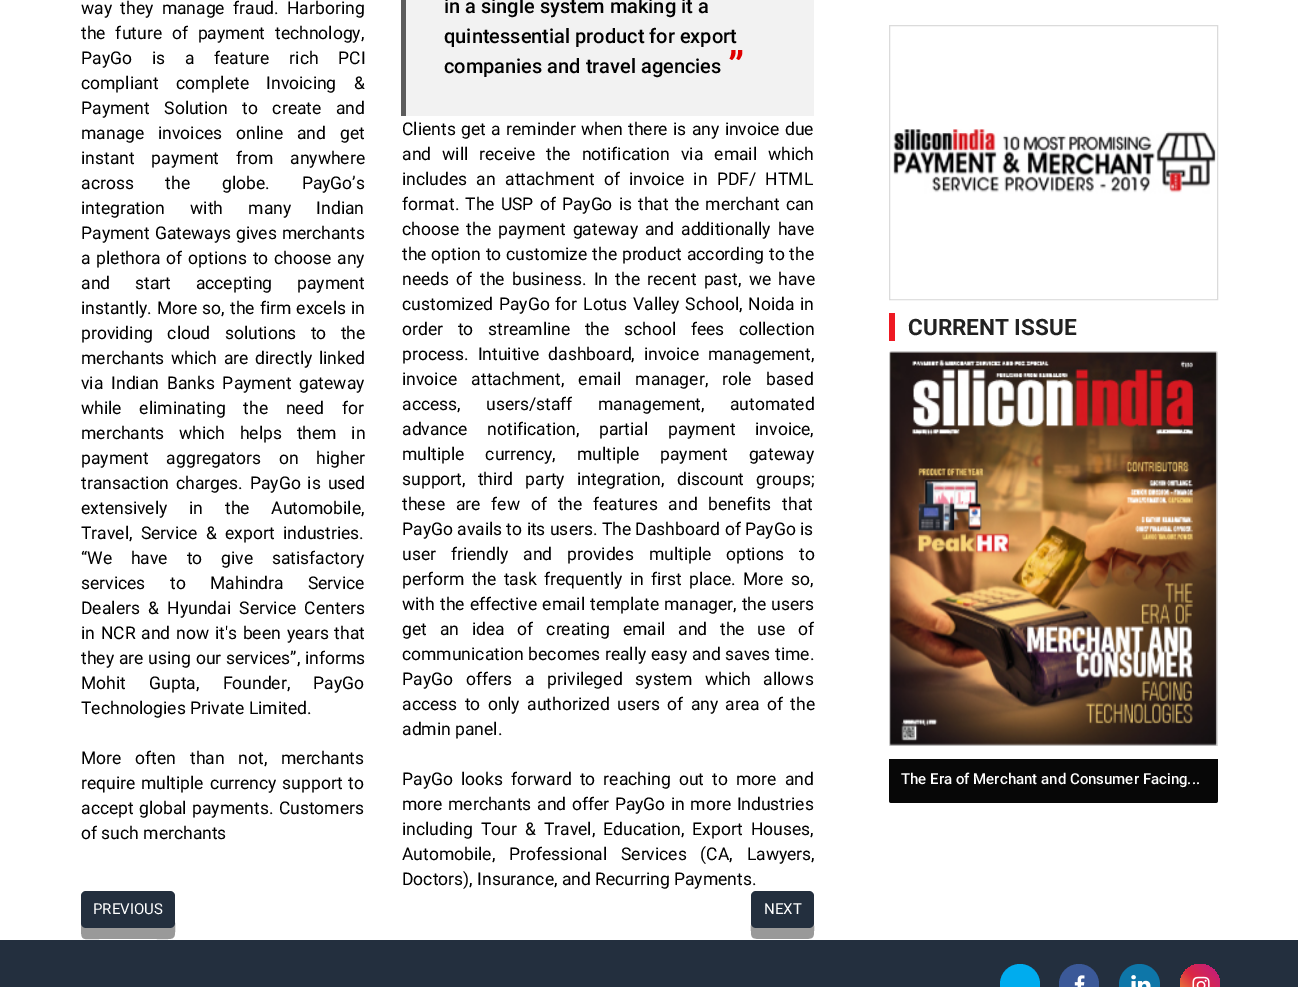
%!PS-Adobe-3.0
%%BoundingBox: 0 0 1298 987
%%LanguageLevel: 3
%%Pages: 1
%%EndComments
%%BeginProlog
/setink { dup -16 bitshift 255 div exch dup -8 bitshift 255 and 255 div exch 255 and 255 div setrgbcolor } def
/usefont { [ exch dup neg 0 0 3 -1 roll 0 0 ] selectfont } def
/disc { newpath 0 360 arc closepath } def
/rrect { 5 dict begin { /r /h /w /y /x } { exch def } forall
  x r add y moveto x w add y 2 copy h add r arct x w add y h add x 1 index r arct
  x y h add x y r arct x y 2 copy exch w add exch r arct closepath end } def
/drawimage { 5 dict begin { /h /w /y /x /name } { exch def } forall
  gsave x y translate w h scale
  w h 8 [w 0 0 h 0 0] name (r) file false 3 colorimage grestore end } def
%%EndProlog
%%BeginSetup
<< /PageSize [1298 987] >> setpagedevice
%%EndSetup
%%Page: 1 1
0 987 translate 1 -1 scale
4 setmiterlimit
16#FFFFFF setink
0 0 1298 987 rectfill
/Roboto-Regular 17.5 usefont
16#000000 setink
81 14 moveto 4 0 32 (way they manage fraud. Harboring) widthshow
81 39 moveto 5.5 0 32 (the future of payment technology,) widthshow
81 64 moveto 15.5 0 32 (PayGo is a feature rich PCI) widthshow
81 89 moveto 13 0 32 (compliant complete Invoicing &) widthshow
81 114 moveto 10 0 32 (Payment Solution to create and) widthshow
81 139 moveto 9.5 0 32 (manage invoices online and get) widthshow
81 164 moveto 12.5 0 32 (instant payment from anywhere) widthshow
81 189 moveto 27.5 0 32 (across the globe. PayGo’s) widthshow
81 214 moveto 21 0 32 (integration with many Indian) widthshow
81 239 moveto 0.5 0 32 (Payment Gateways gives merchants) widthshow
81 264 moveto 1.5 0 32 (a plethora of options to choose any) widthshow
81 289 moveto 20.5 0 32 (and start accepting payment) widthshow
81 314 moveto 0.75 0 32 (instantly. More so, the firm excels in) widthshow
81 339 moveto 10 0 32 (providing cloud solutions to the) widthshow
81 364 moveto 2.5 0 32 (merchants which are directly linked) widthshow
81 389 moveto 3.5 0 32 (via Indian Banks Payment gateway) widthshow
81 414 moveto 13.5 0 32 (while eliminating the need for) widthshow
81 439 moveto 10.5 0 32 (merchants which helps them in) widthshow
81 464 moveto 13.5 0 32 (payment aggregators on higher) widthshow
81 489 moveto 2.5 0 32 (transaction charges. PayGo is used) widthshow
81 514 moveto 17.5 0 32 (extensively in the Automobile,) widthshow
81 539 moveto 4 0 32 (Travel, Service & export industries.) widthshow
81 564 moveto 14.5 0 32 (“We have to give satisfactory) widthshow
81 589 moveto 20 0 32 (services to Mahindra Service) widthshow
81 614 moveto 4 0 32 (Dealers & Hyundai Service Centers) widthshow
81 639 moveto 1.5 0 32 (in NCR and now it's been years that) widthshow
81 664 moveto 0.5 0 32 (they are using our services”, informs) widthshow
81 689 moveto 19 0 32 (Mohit Gupta, Founder, PayGo) widthshow
81 714 moveto (Technologies Private Limited.) show
81 764 moveto 9.5 0 32 (More often than not, merchants) widthshow
81 789 moveto 1.5 0 32 (require multiple currency support to) widthshow
81 814 moveto 1 0 32 (accept global payments. Customers) widthshow
81 839 moveto (of such merchants) show
16#F2F2F2 setink
406 0 408 116 rectfill
16#5C5C5C setink
401 0 5 116 rectfill
/Roboto-Medium 20 usefont
16#000000 setink
444 13 moveto (in a single system making it a) show
444 43 moveto (quintessential product for export) show
/Roboto-Bold 40 usefont
16#E00000 setink
728 80 moveto (”) show
/Roboto-Medium 20 usefont
16#000000 setink
444 73 moveto (companies and travel agencies) show
/Roboto-Regular 17.5 usefont
402 135 moveto 1 0 32 (Clients get a reminder when there is any invoice due) widthshow
402 160 moveto 6.75 0 32 (and will receive the notification via email which) widthshow
402 185 moveto 5 0 32 (includes an attachment of invoice in PDF/ HTML) widthshow
402 210 moveto 1.75 0 32 (format. The USP of PayGo is that the merchant can) widthshow
402 235 moveto 2.75 0 32 (choose the payment gateway and additionally have) widthshow
402 260 moveto 0.5 0 32 (the option to customize the product according to the) widthshow
402 285 moveto 3 0 32 (needs of the business. In the recent past, we have) widthshow
402 310 moveto 1.5 0 32 (customized PayGo for Lotus Valley School, Noida in) widthshow
402 335 moveto 10.25 0 32 (order to streamline the school fees collection) widthshow
402 360 moveto 4.5 0 32 (process. Intuitive dashboard, invoice management,) widthshow
402 385 moveto 10 0 32 (invoice attachment, email manager, role based) widthshow
402 410 moveto 21 0 32 (access, users/staff management, automated) widthshow
402 435 moveto 15.5 0 32 (advance notification, partial payment invoice,) widthshow
402 460 moveto 16.5 0 32 (multiple currency, multiple payment gateway) widthshow
402 485 moveto 8 0 32 (support, third party integration, discount groups;) widthshow
402 510 moveto 6.5 0 32 (these are few of the features and benefits that) widthshow
402 535 moveto (PayGo avails to its users. The Dashboard of PayGo is) show
402 560 moveto 10.5 0 32 (user friendly and provides multiple options to) widthshow
402 585 moveto 3 0 32 (perform the task frequently in first place. More so,) widthshow
402 610 moveto 0.75 0 32 (with the effective email template manager, the users) widthshow
402 635 moveto 8.5 0 32 (get an idea of creating email and the use of) widthshow
402 660 moveto 0.25 0 32 (communication becomes really easy and saves time.) widthshow
402 685 moveto 8.5 0 32 (PayGo offers a privileged system which allows) widthshow
402 710 moveto 3 0 32 (access to only authorized users of any area of the) widthshow
402 735 moveto (admin panel.) show
402 785 moveto 3.75 0 32 (PayGo looks forward to reaching out to more and) widthshow
402 810 moveto 1.25 0 32 (more merchants and offer PayGo in more Industries) widthshow
402 835 moveto 3.75 0 32 (including Tour & Travel, Education, Export Houses,) widthshow
402 860 moveto 9.5 0 32 (Automobile, Professional Services \(CA, Lawyers,) widthshow
402 885 moveto (Doctors\), Insurance, and Recurring Payments.) show
16#999999 setink
81 906 moveto 81 925 lineto 81 942 81 939 100 939 curveto 156 939 lineto 177 939 175 941 175 922 curveto 175 925 173 928 170 928 curveto 86 928 lineto 83 928 81 925 81 922 curveto closepath fill
16#232F3E setink
81 891 94 37 5 rrect fill
/Roboto-Regular 15 usefont
16#FFFFFF setink
93 914 moveto (PREVIOUS) show
16#999999 setink
751 906 moveto 751 925 lineto 751 939 750 939 765 939 curveto 800 939 lineto 815 939 814 939 814 925 curveto 814 906 lineto 814 922 lineto 814 925 812 928 809 928 curveto 756 928 lineto 753 928 751 925 751 922 curveto closepath fill
16#232F3E setink
751 891 63 37 5 rrect fill
16#FFFFFF setink
764 914 moveto (NEXT) show
16#DBDBDB setink
889.5 25.5 328 274 rectstroke
(img1.raw) 891 129 325 171 drawimage
16#EE1922 setink
889 313 6 28 rectfill
/Roboto-Bold 22.5 usefont
16#222222 setink
908 335 moveto (CURRENT ISSUE) show
16#DBDBDB setink
892 351 moveto 890 351 889 352 889 354 curveto 889 746 lineto 1218 746 lineto 1218 354 lineto 1218 352 1217 351 1216 351 curveto closepath 890 352 moveto 890 745 lineto 1217 745 lineto 1217 352 lineto closepath eofill
(img2.raw) 889 351 328 395 drawimage
16#070707 setink
889 759 moveto 1218 759 lineto 1218 800.5 lineto 1218 802 1217 803 1215.5 803 curveto 891.5 803 lineto 890 803 889 802 889 800.5 curveto closepath fill
/Roboto-Medium 15 usefont
16#FFFFFF setink
901 784 moveto (The Era of Merchant and Consumer Facing...) show
16#232F3E setink
0 940 1298 47 rectfill
16#00ACEE setink
1020 984 20 disc fill
16#3B5998 setink
1079 984 20 disc fill
(img3.raw) 1074 975 11 12 drawimage
16#0E76A8 setink
1139.5 984.5 20.5 disc fill
(img4.raw) 1131 975 20 12 drawimage
gsave 1200 984 20 disc clip newpath
<< /ShadingType 2 /ColorSpace /DeviceRGB /Coords [1180 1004 1220 964] /Extend [true true] /Function << /FunctionType 3 /Domain [0 1] /Functions [<< /FunctionType 2 /Domain [0 1] /C0 [0.941 0.58 0.2] /C1 [0.902 0.408 0.235] /N 1 >> << /FunctionType 2 /Domain [0 1] /C0 [0.902 0.408 0.235] /C1 [0.863 0.153 0.263] /N 1 >> << /FunctionType 2 /Domain [0 1] /C0 [0.863 0.153 0.263] /C1 [0.8 0.137 0.4] /N 1 >> << /FunctionType 2 /Domain [0 1] /C0 [0.8 0.137 0.4] /C1 [0.737 0.094 0.533] /N 1 >>] /Bounds [0.25 0.5 0.75] /Encode [0 1 0 1 0 1 0 1] >> >> shfill grestore
(img5.raw) 1192 976 18 11 drawimage
showpage
%%EOF
